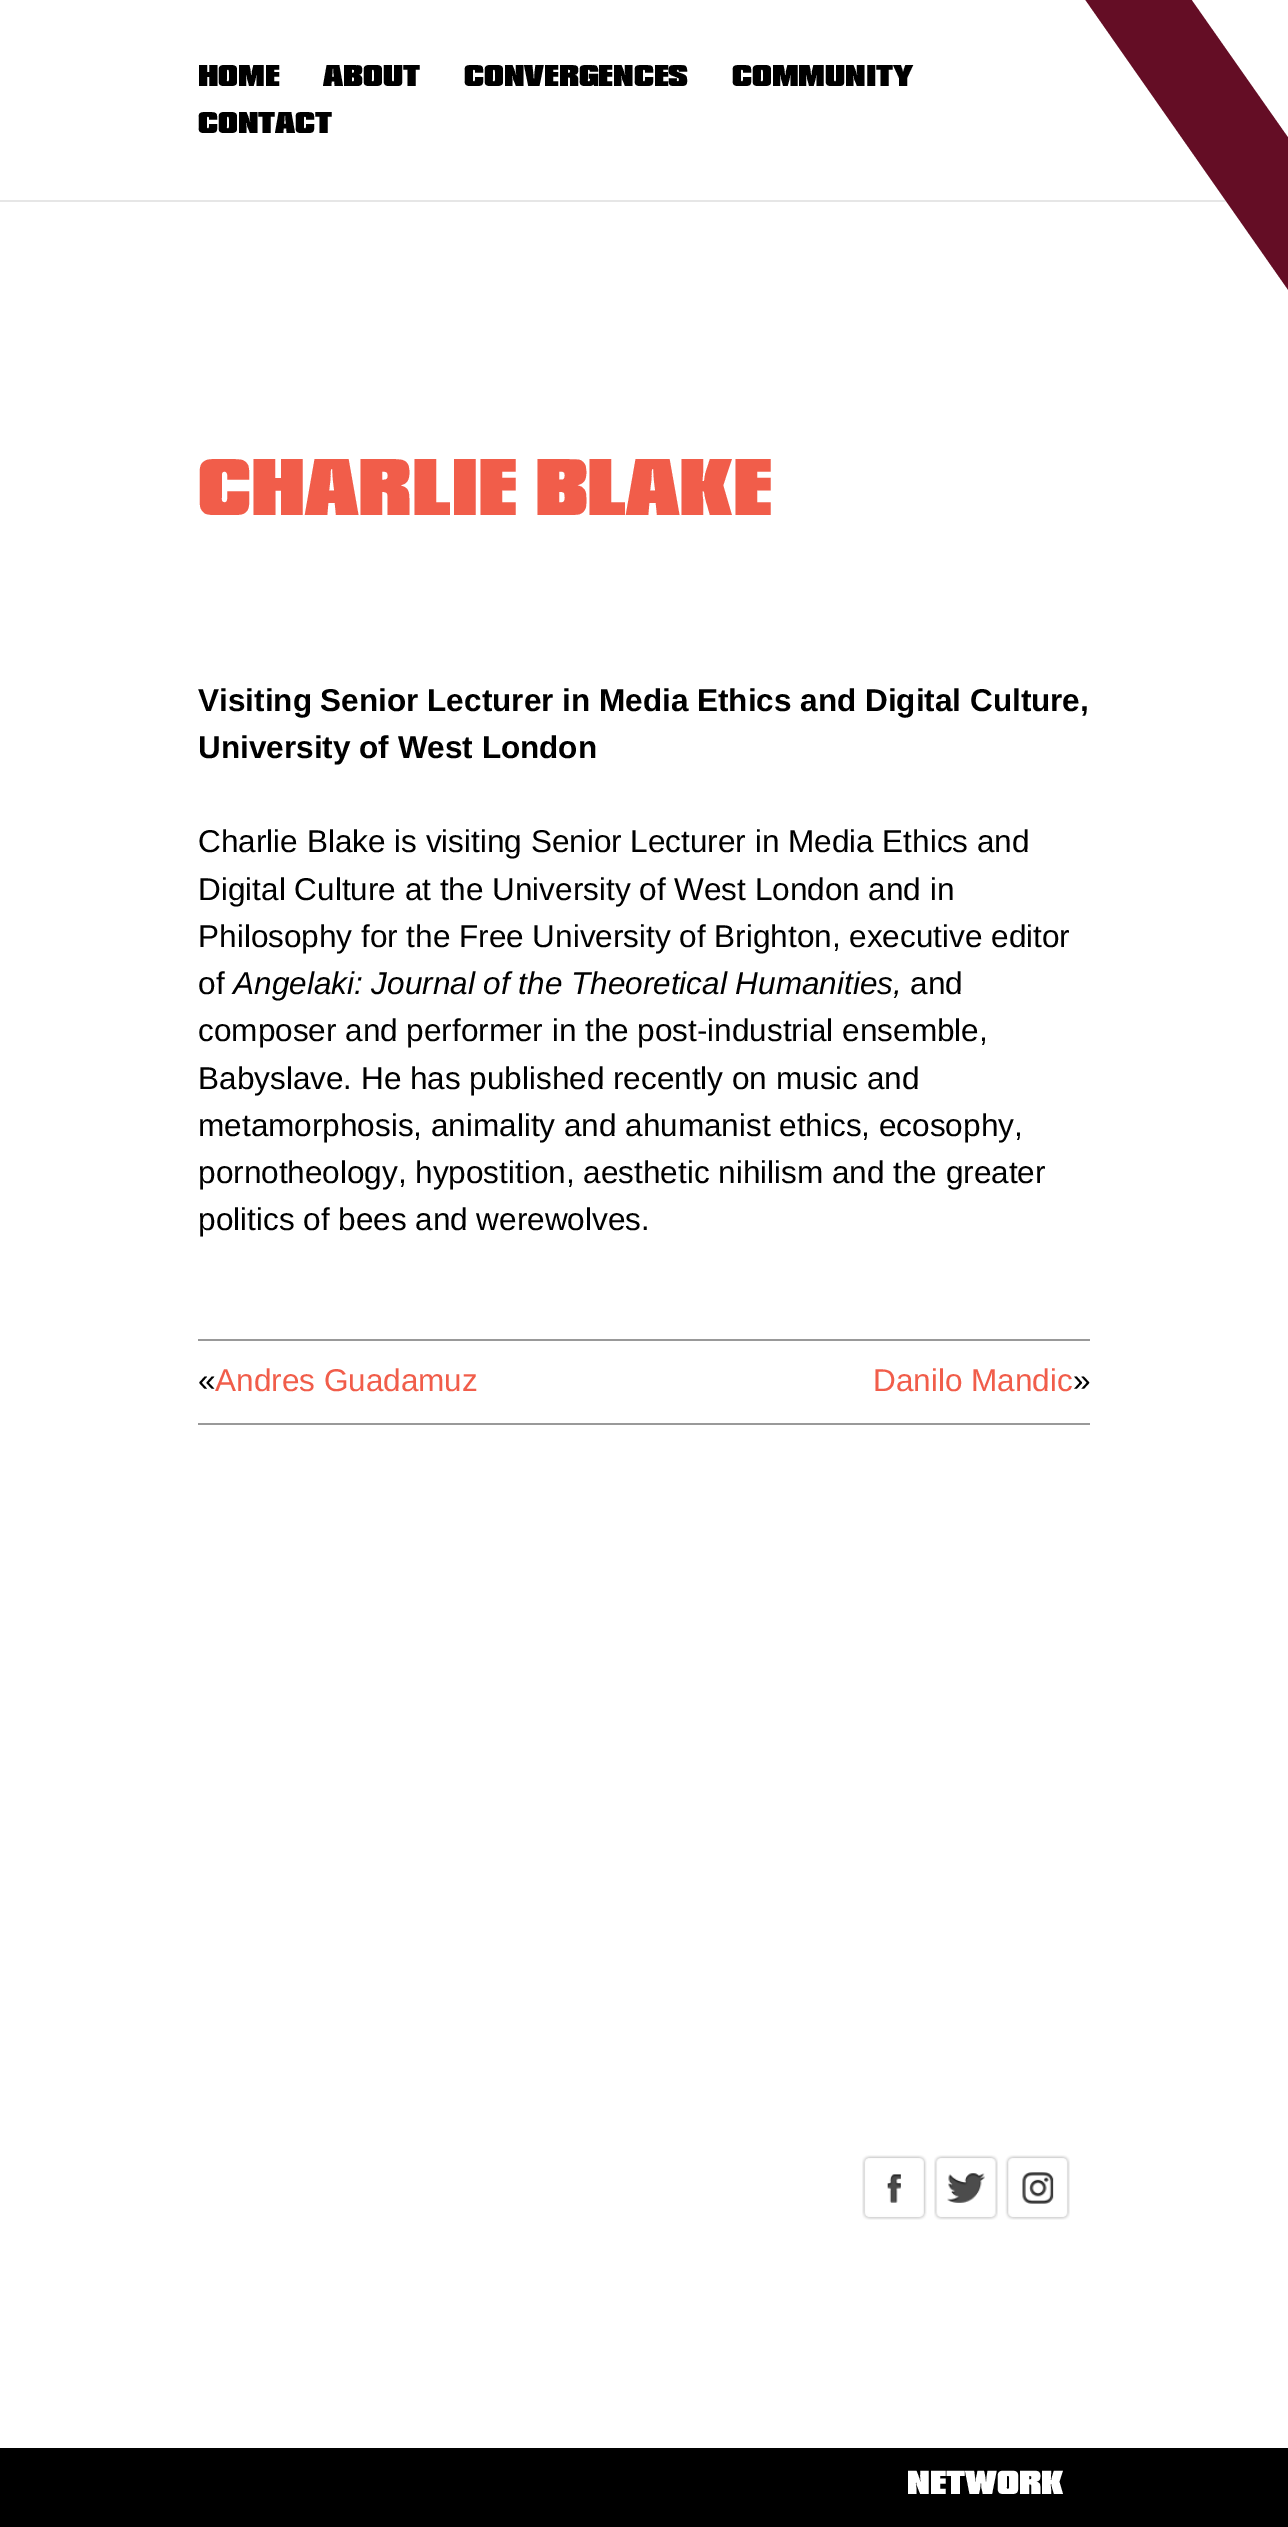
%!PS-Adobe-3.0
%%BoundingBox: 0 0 1288 2527
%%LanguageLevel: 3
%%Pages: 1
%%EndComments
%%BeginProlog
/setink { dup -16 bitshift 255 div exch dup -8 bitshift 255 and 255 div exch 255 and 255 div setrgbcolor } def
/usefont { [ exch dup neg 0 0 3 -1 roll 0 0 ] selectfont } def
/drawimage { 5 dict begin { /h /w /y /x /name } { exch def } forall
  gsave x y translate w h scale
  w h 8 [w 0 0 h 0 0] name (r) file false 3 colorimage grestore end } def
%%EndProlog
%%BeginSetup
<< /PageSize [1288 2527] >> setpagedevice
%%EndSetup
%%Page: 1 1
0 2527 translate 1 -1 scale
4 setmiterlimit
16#FFFFFF setink
0 0 1288 2527 rectfill
16#E6E6E6 setink
0 200 1227 2 rectfill
/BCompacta-Regular 31.5 usefont
16#000000 setink
[
    [(HOME) 198 86]
    [(ABOUT) 323 86]
    [(CONVERGENCES) 464 86]
    [(COMMUNITY) 732 86]
    [(CONTACT) 198 133]
] { aload pop moveto show } forall
16#640D25 setink
1139 -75 moveto 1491 427 lineto 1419 477 lineto 1068 -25 lineto closepath fill
/BCompacta-Regular 84 usefont
16#F15D4A setink
198 515 moveto (CHARLIE BLAKE) show
/LiberationSans-Bold 31.5 usefont
16#000000 setink
198 711 moveto (Visiting Senior Lecturer in Media Ethics and Digital Culture,) show
198 758 moveto (University of West London) show
/LiberationSans-Regular 31.5 usefont
[
    [(Charlie Blake is visiting Senior Lecturer in Media Ethics and) 198 852]
    [(Digital Culture at the University of West London and in) 198 900]
    [(Philosophy for the Free University of Brighton, executive editor) 198 947]
    [(of) 198 994]
] { aload pop moveto show } forall
/LiberationSans-Italic 31.5 usefont
233 994 moveto (Angelaki: Journal of the Theoretical Humanities,) show
/LiberationSans-Regular 31.5 usefont
[
    [(and) 910 994]
    [(composer and performer in the post-industrial ensemble,) 198 1041]
    [(Babyslave. He has published recently on music and) 198 1089]
    [(metamorphosis, animality and ahumanist ethics, ecosophy,) 198 1136]
    [(pornotheology, hypostition, aesthetic nihilism and the greater) 198 1183]
    [(politics of bees and werewolves.) 198 1230]
] { aload pop moveto show } forall
16#999999 setink
198 1339 892 2 rectfill
198 1423 892 2 rectfill
16#000000 setink
198 1391 moveto («) show
16#F15D4A setink
215 1391 moveto (Andres Guadamuz) show
873 1391 moveto (Danilo Mandic) show
16#000000 setink
1073 1391 moveto (») show
0 2448 1288 79 rectfill
/BCompacta-Regular 35 usefont
16#FFFFFF setink
907 2494 moveto (NETWORK) show
(img1.raw) 862 2155 65 65 drawimage
(img2.raw) 934 2155 64 65 drawimage
(img3.raw) 1005 2155 65 65 drawimage
showpage
%%EOF
